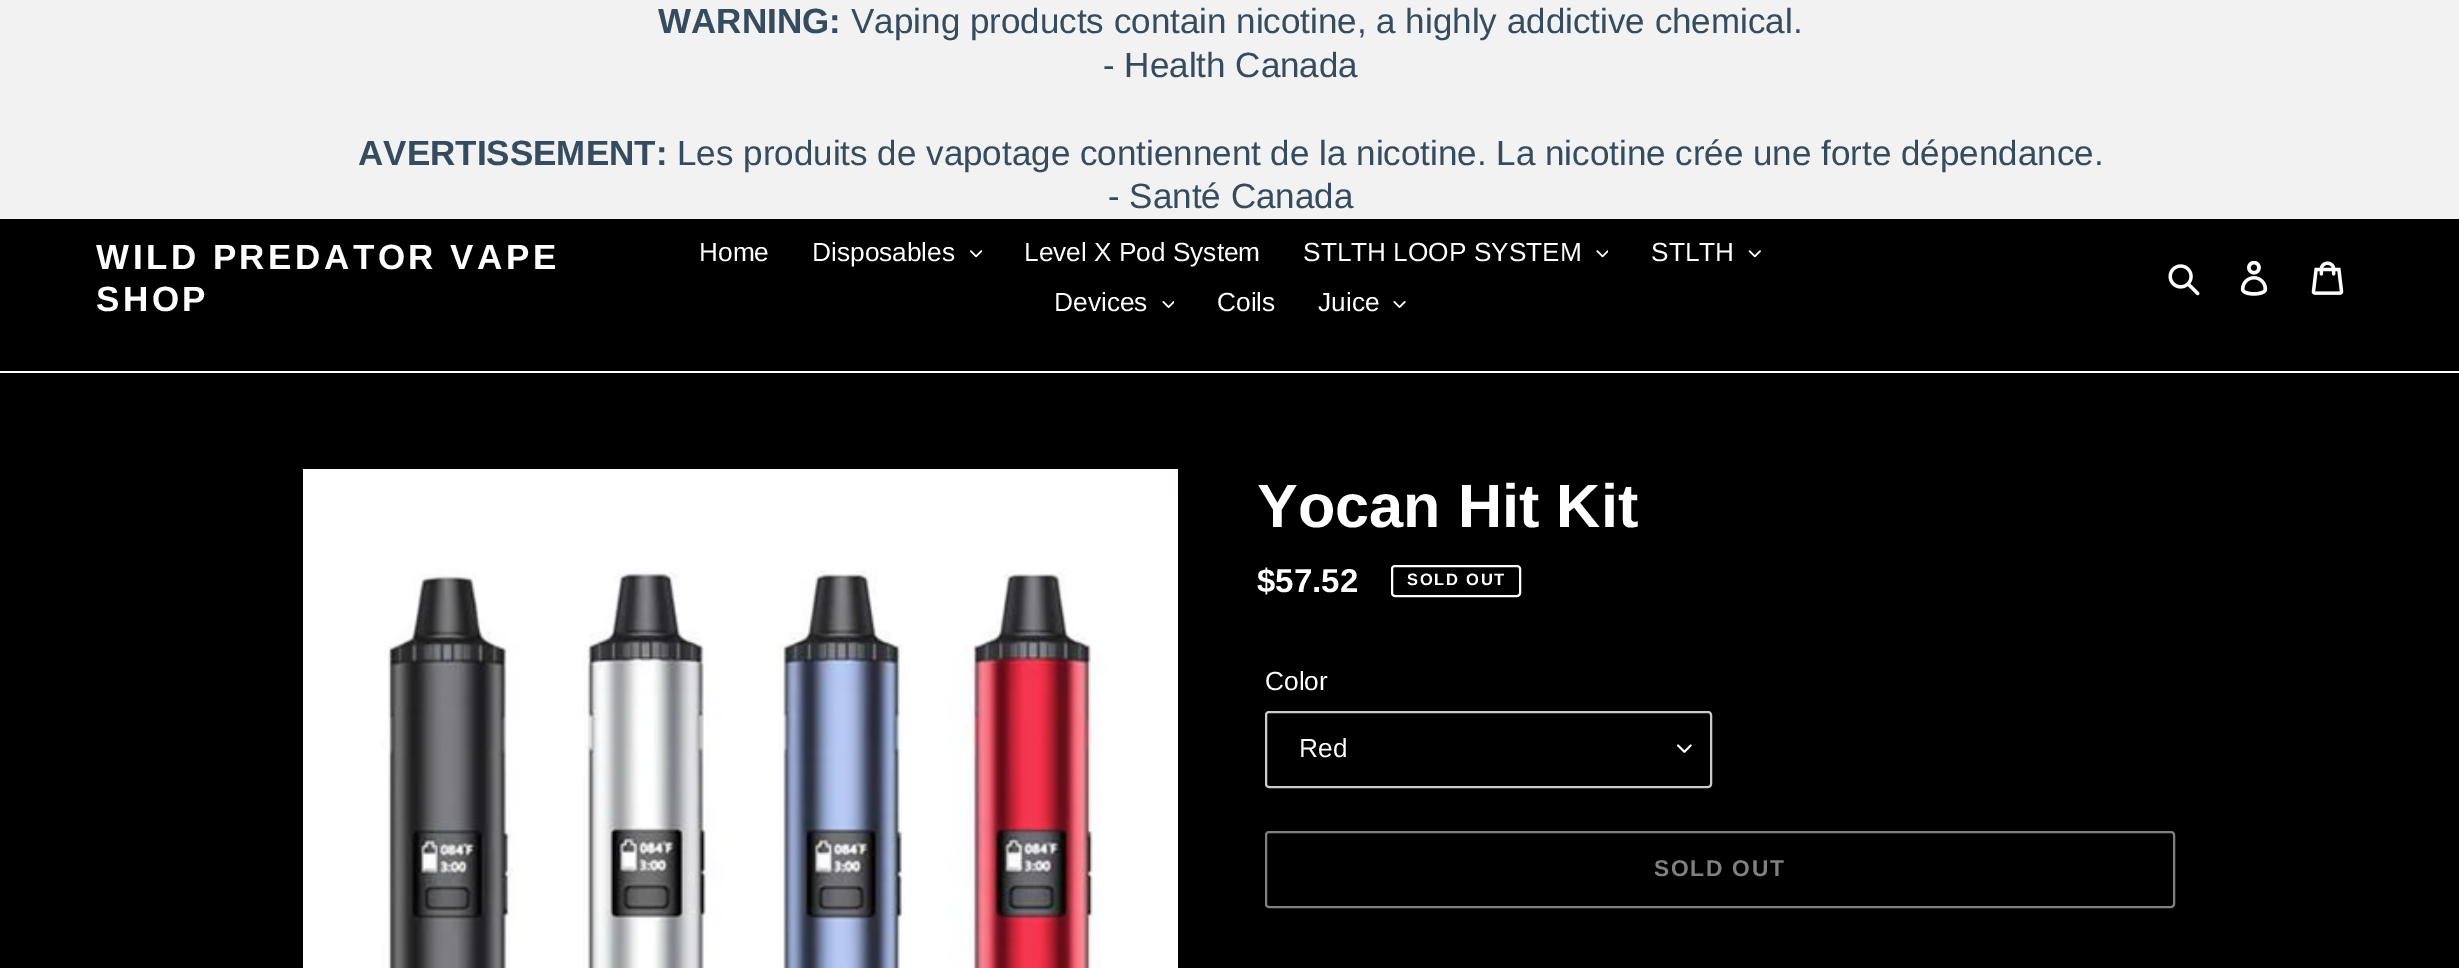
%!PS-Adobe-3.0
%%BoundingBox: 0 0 2459 968
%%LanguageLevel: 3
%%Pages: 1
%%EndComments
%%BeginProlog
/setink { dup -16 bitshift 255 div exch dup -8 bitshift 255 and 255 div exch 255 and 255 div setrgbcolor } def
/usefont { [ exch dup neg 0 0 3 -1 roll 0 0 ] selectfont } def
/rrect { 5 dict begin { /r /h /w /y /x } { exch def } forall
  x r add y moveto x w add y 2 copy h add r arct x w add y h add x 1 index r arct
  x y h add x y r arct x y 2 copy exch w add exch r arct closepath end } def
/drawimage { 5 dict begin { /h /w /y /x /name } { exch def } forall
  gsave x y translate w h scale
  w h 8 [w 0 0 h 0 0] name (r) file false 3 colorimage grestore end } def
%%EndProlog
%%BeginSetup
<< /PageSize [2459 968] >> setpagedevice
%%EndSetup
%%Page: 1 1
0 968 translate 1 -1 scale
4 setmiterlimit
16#000000 setink
0 0 2459 968 rectfill
16#F2F2F2 setink
0 0 2459 219 rectfill
/LiberationSans-Bold 35 usefont
16#354B5E setink
658 33 moveto (WARNING:) show
/LiberationSans-Regular 35 usefont
851 33 moveto (Vaping products contain nicotine, a highly addictive chemical.) show
1103 77 moveto (- Health Canada) show
/LiberationSans-Bold 35 usefont
358 165 moveto (AVERTISSEMENT:) show
/LiberationSans-Regular 35 usefont
677 165 moveto (Les produits de vapotage contiennent de la nicotine. La nicotine crée une forte dépendance.) show
1108 208 moveto (- Santé Canada) show
16#FFFFFF setink
0 371 2459 2 rectfill
/LiberationSans-Bold 35 usefont
96 269 moveto 3.5 0 (WILD PREDATOR VAPE) ashow
96 311 moveto 3.5 0 (SHOP) ashow
/LiberationSans-Regular 26.25 usefont
699 261 moveto (Home) show
812 261 moveto (Disposables) show
(img1.raw) 970 250 12 8 drawimage
1024 261 moveto (Level X Pod System) show
1303 261 moveto (STLTH LOOP SYSTEM) show
(img2.raw) 1596 250 12 8 drawimage
1651 261 moveto (STLTH) show
(img3.raw) 1748 250 13 8 drawimage
1054 311 moveto (Devices) show
(img4.raw) 1162 301 12 7 drawimage
1217 311 moveto (Coils) show
1318 311 moveto (Juice) show
(img5.raw) 1393 301 13 7 drawimage
(img6.raw) 2168 264 32 32 drawimage
(img7.raw) 2240 261 28 35 drawimage
(img8.raw) 2311 261 33 34 drawimage
(img9.raw) 303 469 875 499 drawimage
/LiberationSans-Bold 61.25 usefont
1257 527 moveto (Yocan Hit Kit) show
/LiberationSans-Bold 33 usefont
1257 592 moveto ($57.52) show
2 setlinewidth
1392 566 128 30 3 rrect stroke
/LiberationSans-Bold 16.5 usefont
1407 585 moveto 1.75 0 (SOLD OUT) ashow
/LiberationSans-Regular 26.25 usefont
1265 690 moveto (Color) show
(img10.raw) 1677 744 15 9 drawimage
16#CCCCCC setink
1266 712 445 75 3 rrect stroke
16#FFFFFF setink
1299 757 moveto (Red) show
16#808080 setink
1266 832 908 75 3 rrect stroke
/LiberationSans-Bold 22.75 usefont
1654 876 moveto 1.75 0 (SOLD OUT) ashow
showpage
%%EOF
